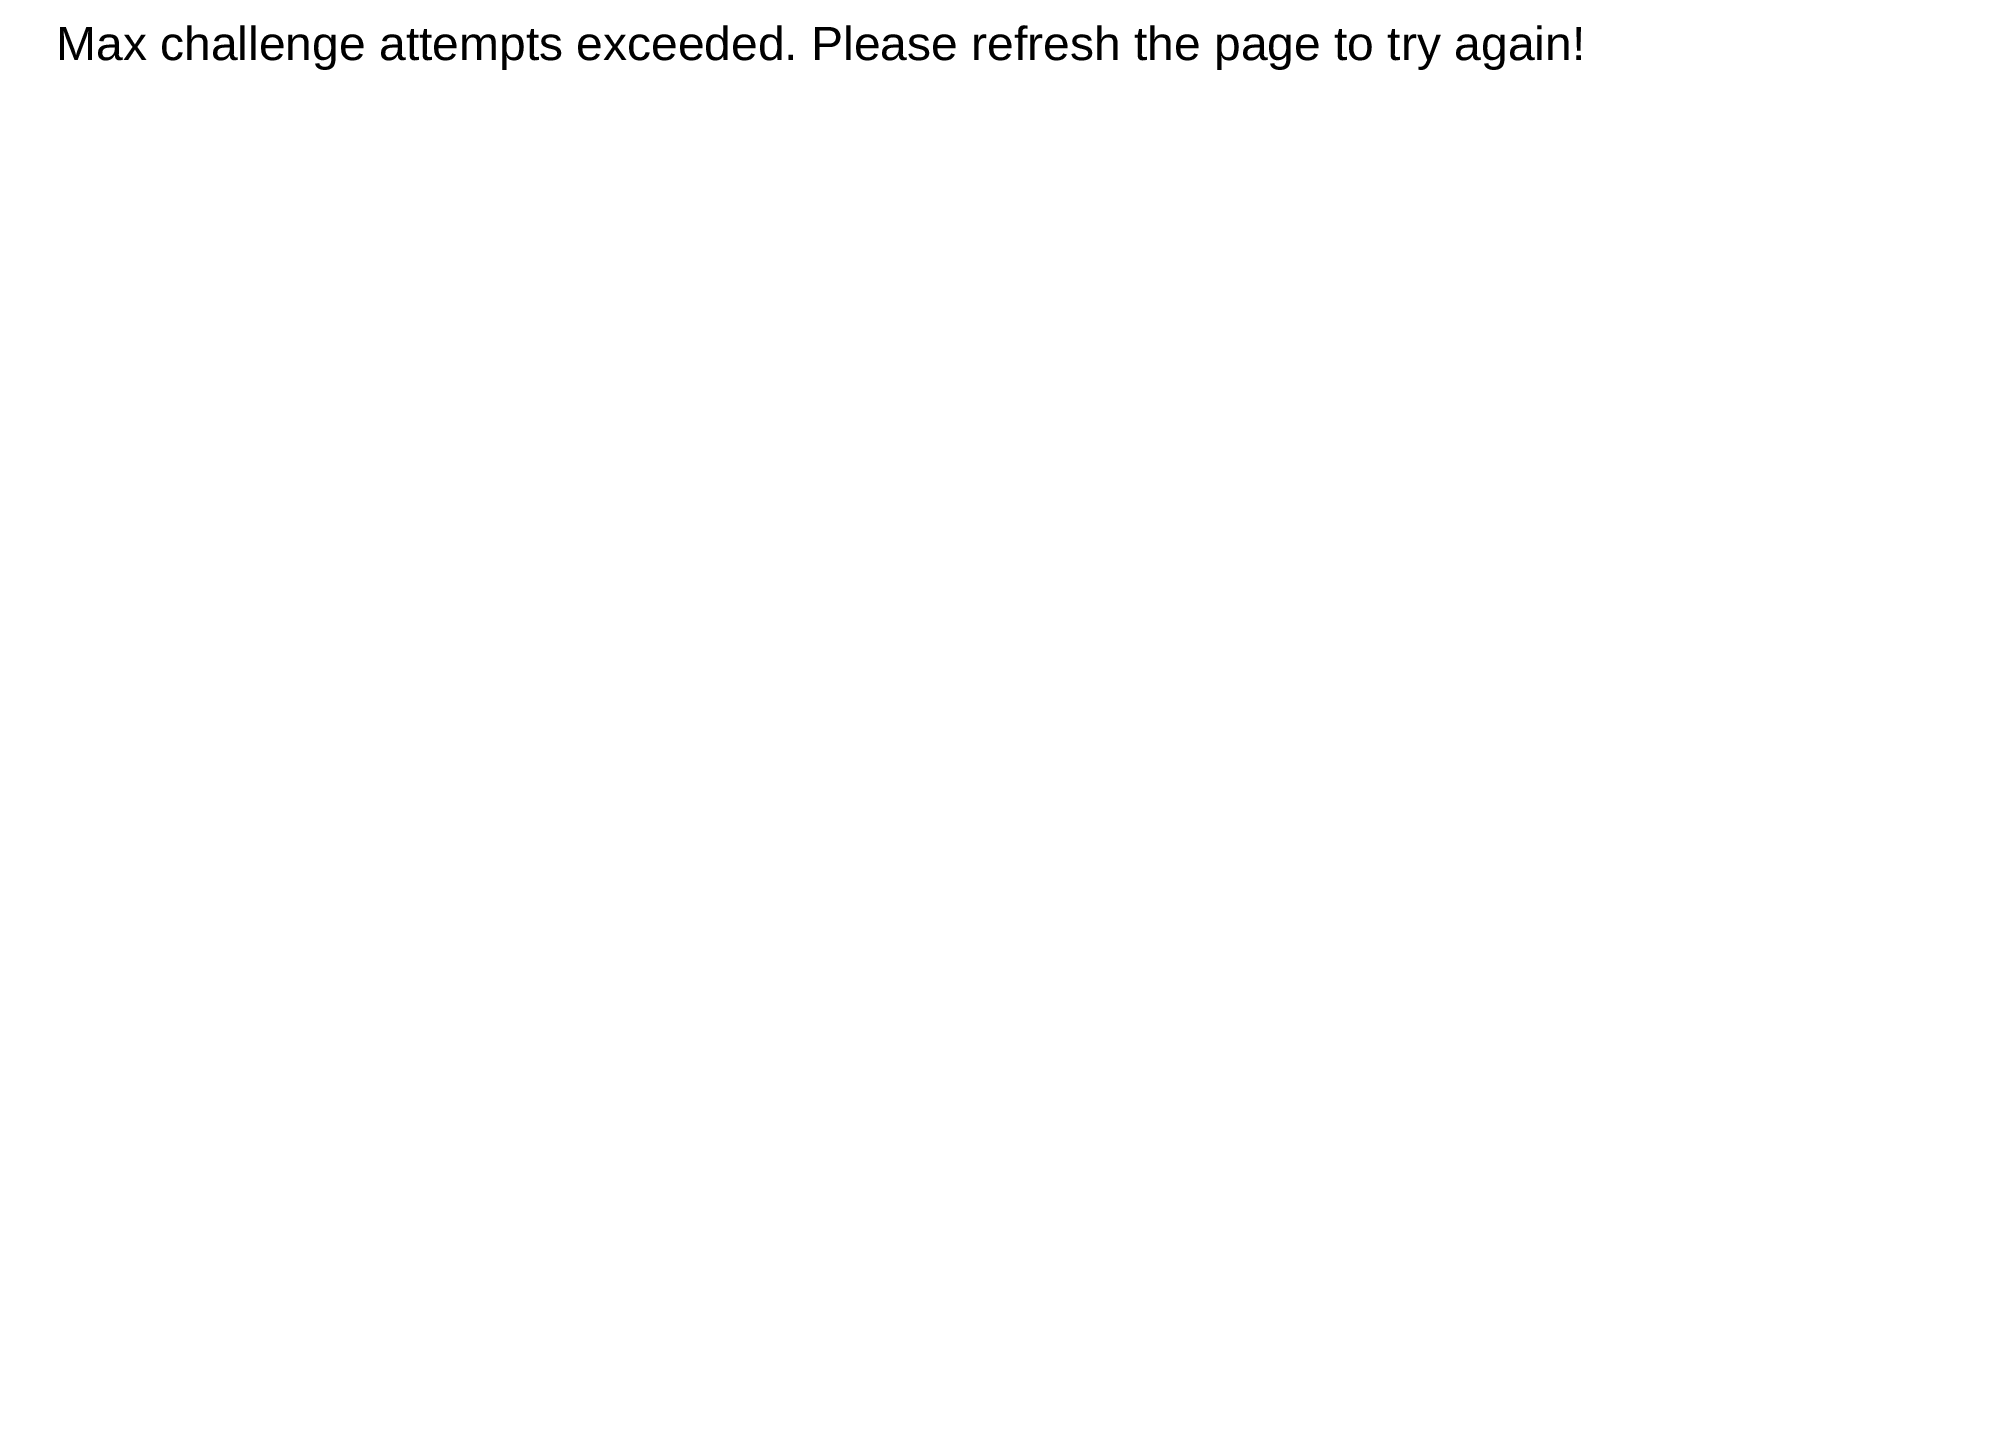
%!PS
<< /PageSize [2009 1438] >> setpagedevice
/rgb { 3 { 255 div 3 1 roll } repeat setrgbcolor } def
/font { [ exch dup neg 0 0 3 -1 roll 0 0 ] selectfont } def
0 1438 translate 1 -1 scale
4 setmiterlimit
255 255 255 rgb
0 0 2009 1438 rectfill
/LiberationSans-Regular 48 font
0 0 0 rgb
56 60 moveto (Max challenge attempts exceeded. Please refresh the page to try again!) show
showpage
